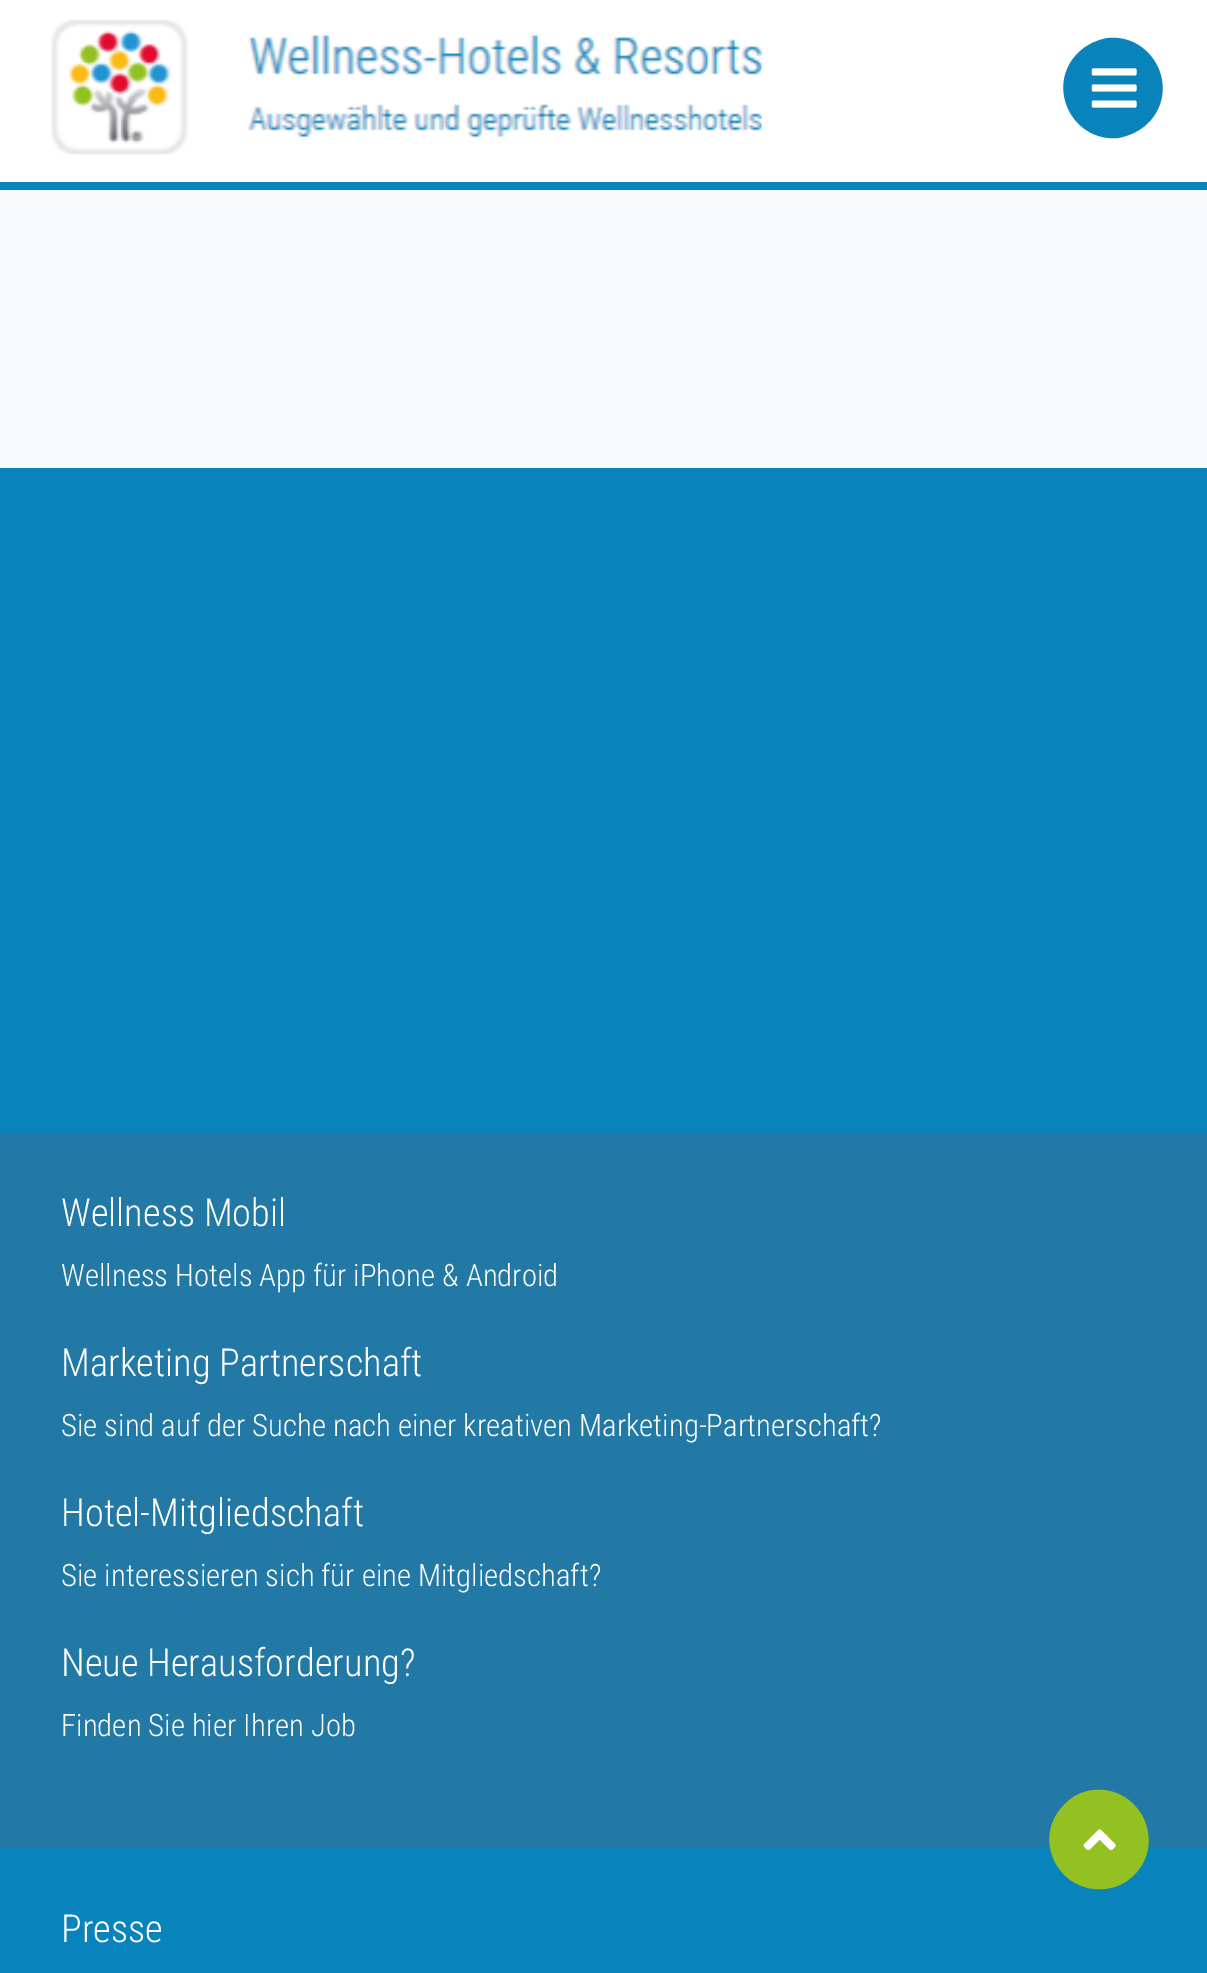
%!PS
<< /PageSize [1207 1973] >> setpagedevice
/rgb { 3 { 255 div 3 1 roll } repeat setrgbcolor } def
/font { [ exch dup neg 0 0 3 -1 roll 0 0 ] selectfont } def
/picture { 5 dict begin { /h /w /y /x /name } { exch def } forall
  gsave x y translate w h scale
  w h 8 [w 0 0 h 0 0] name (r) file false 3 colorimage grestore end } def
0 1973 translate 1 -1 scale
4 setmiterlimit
248 249 250 rgb
0 0 1207 1973 rectfill
255 255 255 rgb
0 0 1207 182 rectfill
8 131 187 rgb
0 182 1207 8 rectfill
(img/1.rgb) 51 19 713 136 picture
1078 53 moveto 1086 45 1096 40 1108 38 curveto 1154 34 1181 90 1148 123 curveto 1140 131 1129 136 1118 138 curveto 1072 142 1045 86 1078 53 curveto closepath fill
(img/2.rgb) 1091 68 46 40 picture
0 468 1207 1505 rectfill
34 121 165 rgb
0 1133 1207 715 rectfill
148 193 34 rgb
1064 1805 moveto 1072 1796 1083 1791 1094 1790 curveto 1140 1786 1167 1842 1134 1875 curveto 1126 1883 1116 1888 1104 1889 curveto 1058 1893 1031 1838 1064 1805 curveto closepath fill
(img/3.rgb) 1083 1829 33 22 picture
/RobotoCondensed-Light 38.5 font
255 255 255 rgb
61 1226 moveto (Wellness Mobil) show
/RobotoCondensed-Light 30.8 font
61 1286 moveto (Wellness Hotels App für iPhone & Android) show
/RobotoCondensed-Light 38.5 font
61 1376 moveto (Marketing Partnerschaft) show
/RobotoCondensed-Light 30.8 font
61 1436 moveto (Sie sind auf der Suche nach einer kreativen Marketing-Partnerschaft?) show
/RobotoCondensed-Light 38.5 font
61 1526 moveto (Hotel-Mitgliedschaft) show
/RobotoCondensed-Light 30.8 font
61 1586 moveto (Sie interessieren sich für eine Mitgliedschaft?) show
/RobotoCondensed-Light 38.5 font
61 1676 moveto (Neue Herausforderung?) show
/RobotoCondensed-Light 30.8 font
61 1736 moveto (Finden Sie hier Ihren Job) show
/RobotoCondensed-Light 38.5 font
61 1942 moveto (Presse) show
showpage
